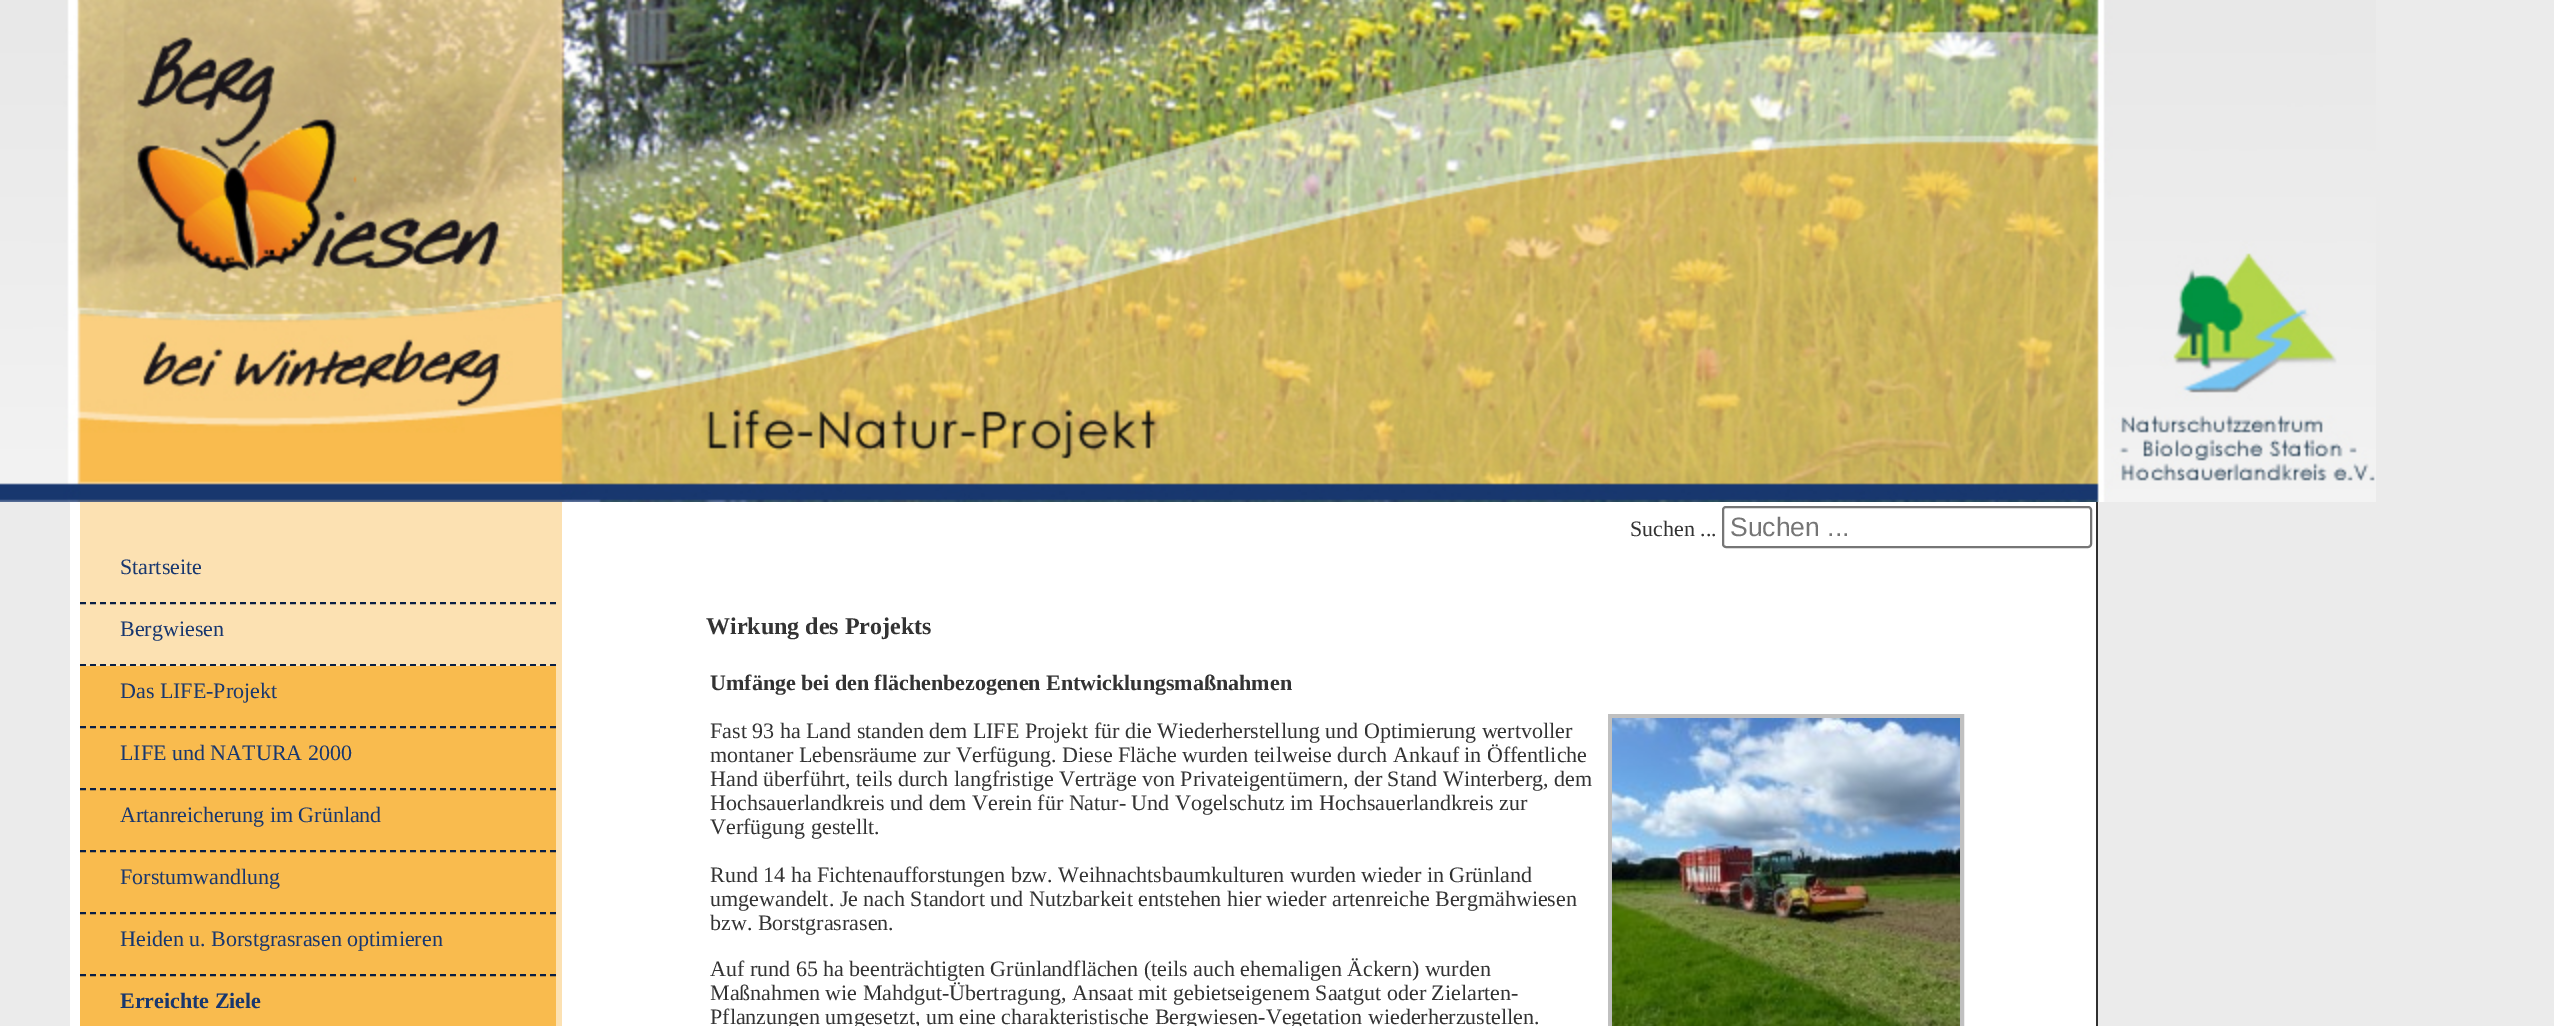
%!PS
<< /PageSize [2554 1026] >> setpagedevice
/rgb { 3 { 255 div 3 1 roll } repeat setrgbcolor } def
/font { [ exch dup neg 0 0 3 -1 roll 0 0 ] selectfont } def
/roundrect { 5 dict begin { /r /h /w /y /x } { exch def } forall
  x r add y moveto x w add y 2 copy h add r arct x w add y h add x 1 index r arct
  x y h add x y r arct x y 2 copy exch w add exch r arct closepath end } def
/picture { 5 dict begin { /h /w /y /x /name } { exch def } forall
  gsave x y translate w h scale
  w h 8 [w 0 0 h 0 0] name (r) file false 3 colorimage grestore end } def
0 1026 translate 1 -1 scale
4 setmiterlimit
235 235 235 rgb
0 0 2554 1026 rectfill
(img/1.rgb) 0 0 2376 502 picture
252 225 178 rgb
80 502 482 524 rectfill
255 255 255 rgb
70 502 10 524 rectfill
9 31 69 rgb
2 setlinewidth
[6 4] 0 setdash
80 603 moveto 556 603 lineto stroke
80 665 moveto 556 665 lineto stroke
249 187 78 rgb
80 666 476 360 rectfill
9 31 69 rgb
80 727 moveto 556 727 lineto stroke
80 789 moveto 556 789 lineto stroke
80 851 moveto 556 851 lineto stroke
80 913 moveto 556 913 lineto stroke
80 975 moveto 556 975 lineto stroke
255 255 255 rgb
562 502 1534 524 rectfill
48 48 48 rgb
2096 502 2 524 rectfill
118 118 118 rgb
[] 0 setdash
1723 507 368 40 3 roundrect stroke
192 192 192 rgb
4 setlinewidth
1610 716 352 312 rectstroke
(img/2.rgb) 1612 718 348 308 picture
/LiberationSerif-Regular 22 font
24 55 111 rgb
[
  [(Startseite) 120 574]
  [(Bergwiesen) 120 636]
  [(Das LIFE-Projekt) 120 698]
  [(LIFE und NATURA 2000) 120 760]
  [(Artanreicherung im Grünland) 120 822]
  [(Forstumwandlung) 120 884]
  [(Heiden u. Borstgrasrasen optimieren) 120 946]
] { aload pop moveto show } forall
/LiberationSerif-Bold 22 font
120 1008 moveto (Erreichte Ziele) show
/LiberationSerif-Regular 22 font
51 51 51 rgb
1630 536 moveto (Suchen ...) show
/LiberationSans-Regular 26.5 font
117 117 117 rgb
1730 536 moveto (Suchen ...) show
/LiberationSerif-Bold 24 font
51 51 51 rgb
706 634 moveto (Wirkung des Projekts) show
/LiberationSerif-Bold 22 font
710 690 moveto (Umfänge bei den flächenbezogenen Entwicklungsmaßnahmen) show
/LiberationSerif-Regular 22 font
[
  [(Fast 93 ha Land standen dem LIFE Projekt für die Wiederherstellung und Optimierung wertvoller) 710 738]
  [(montaner Lebensräume zur Verfügung. Diese Fläche wurden teilweise durch Ankauf in Öffentliche) 710 762]
  [(Hand überführt, teils durch langfristige Verträge von Privateigentümern, der Stand Winterberg, dem) 710 786]
  [(Hochsauerlandkreis und dem Verein für Natur- Und Vogelschutz im Hochsauerlandkreis zur) 710 810]
  [(Verfügung gestellt.) 710 834]
  [(Rund 14 ha Fichtenaufforstungen bzw. Weihnachtsbaumkulturen wurden wieder in Grünland) 710 882]
  [(umgewandelt. Je nach Standort und Nutzbarkeit entstehen hier wieder artenreiche Bergmähwiesen) 710 906]
  [(bzw. Borstgrasrasen.) 710 930]
  [(Auf rund 65 ha beenträchtigten Grünlandflächen \(teils auch ehemaligen Äckern\) wurden) 710 976]
  [(Maßnahmen wie Mahdgut-Übertragung, Ansaat mit gebietseigenem Saatgut oder Zielarten-) 710 1000]
  [(Pflanzungen umgesetzt, um eine charakteristische Bergwiesen-Vegetation wiederherzustellen.) 710 1024]
] { aload pop moveto show } forall
showpage
